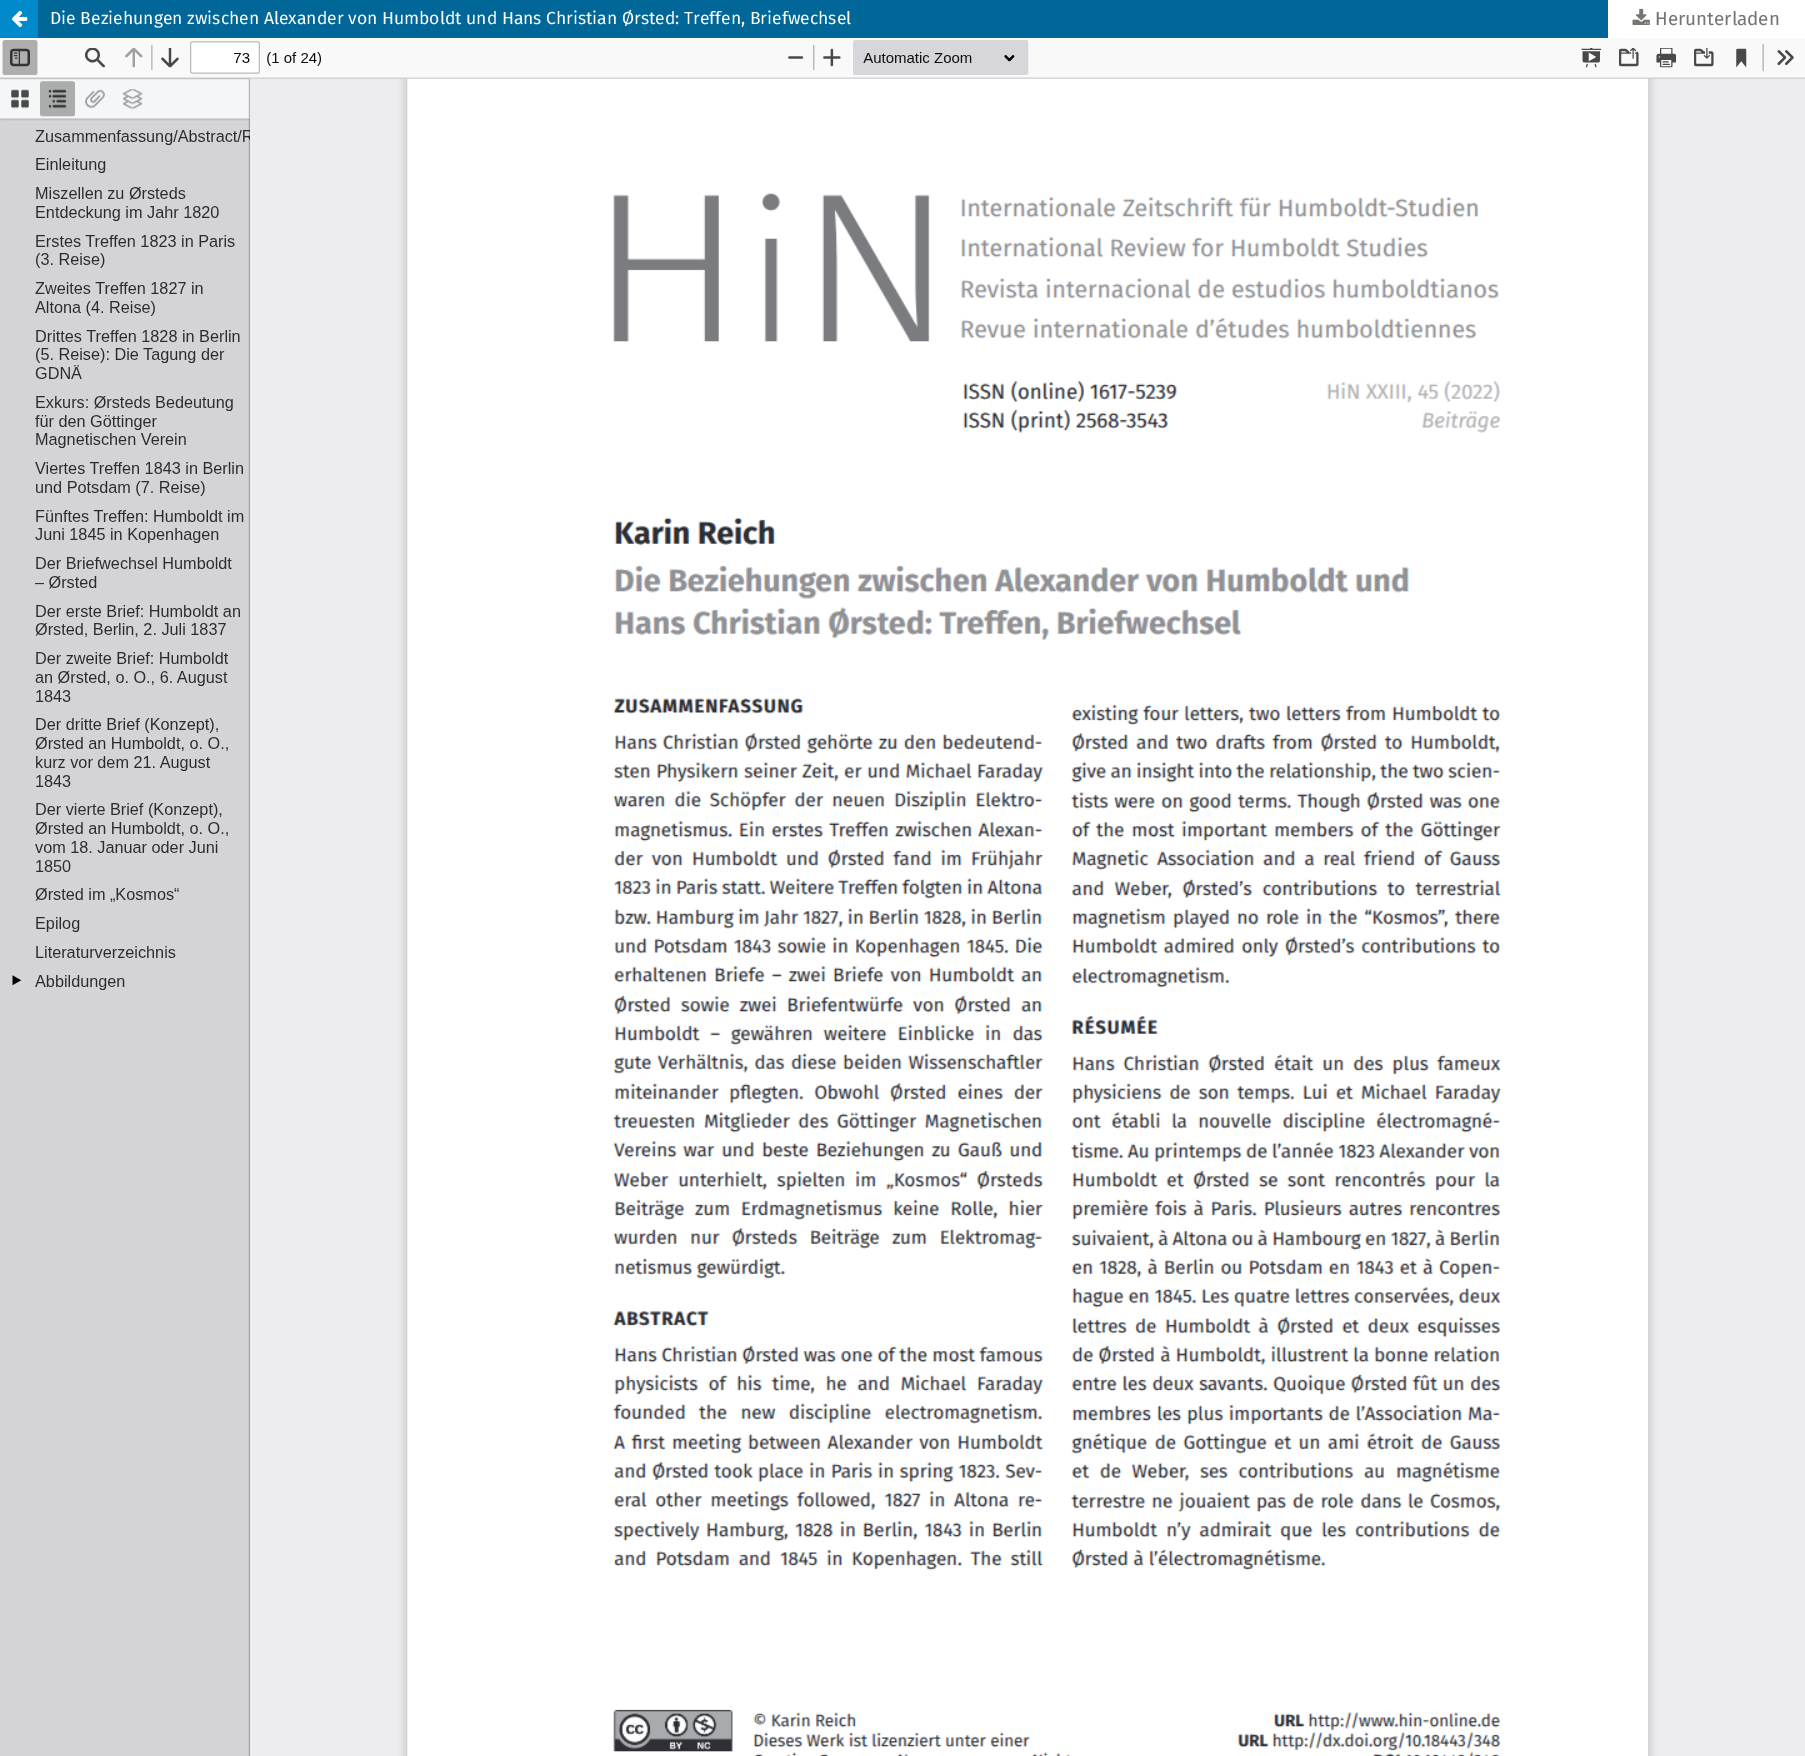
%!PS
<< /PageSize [1805 1756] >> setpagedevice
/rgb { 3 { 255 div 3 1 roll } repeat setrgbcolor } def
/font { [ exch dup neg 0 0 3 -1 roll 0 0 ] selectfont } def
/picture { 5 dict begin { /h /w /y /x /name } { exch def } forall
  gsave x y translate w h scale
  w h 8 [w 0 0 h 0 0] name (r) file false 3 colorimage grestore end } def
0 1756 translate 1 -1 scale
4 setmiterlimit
255 255 255 rgb
0 0 1805 1756 rectfill
0 103 152 rgb
38 0 1570 38 rectfill
0 138 203 rgb
0 0 38 38 rectfill
(img/1.rgb) 12 10 16 18 picture
(img/2.rgb) 1632 8 18 17 picture
(img/3.rgb) 0 38 1805 1718 picture
/FiraSans-Regular 17.5 font
255 255 255 rgb
50 24 moveto (Die Beziehungen zwischen Alexander von Humboldt und Hans Christian Ørsted: Treffen, Briefwechsel) show
/FiraSans-Regular 18.75 font
118 117 114 rgb
1655 25 moveto (Herunterladen) show
showpage
